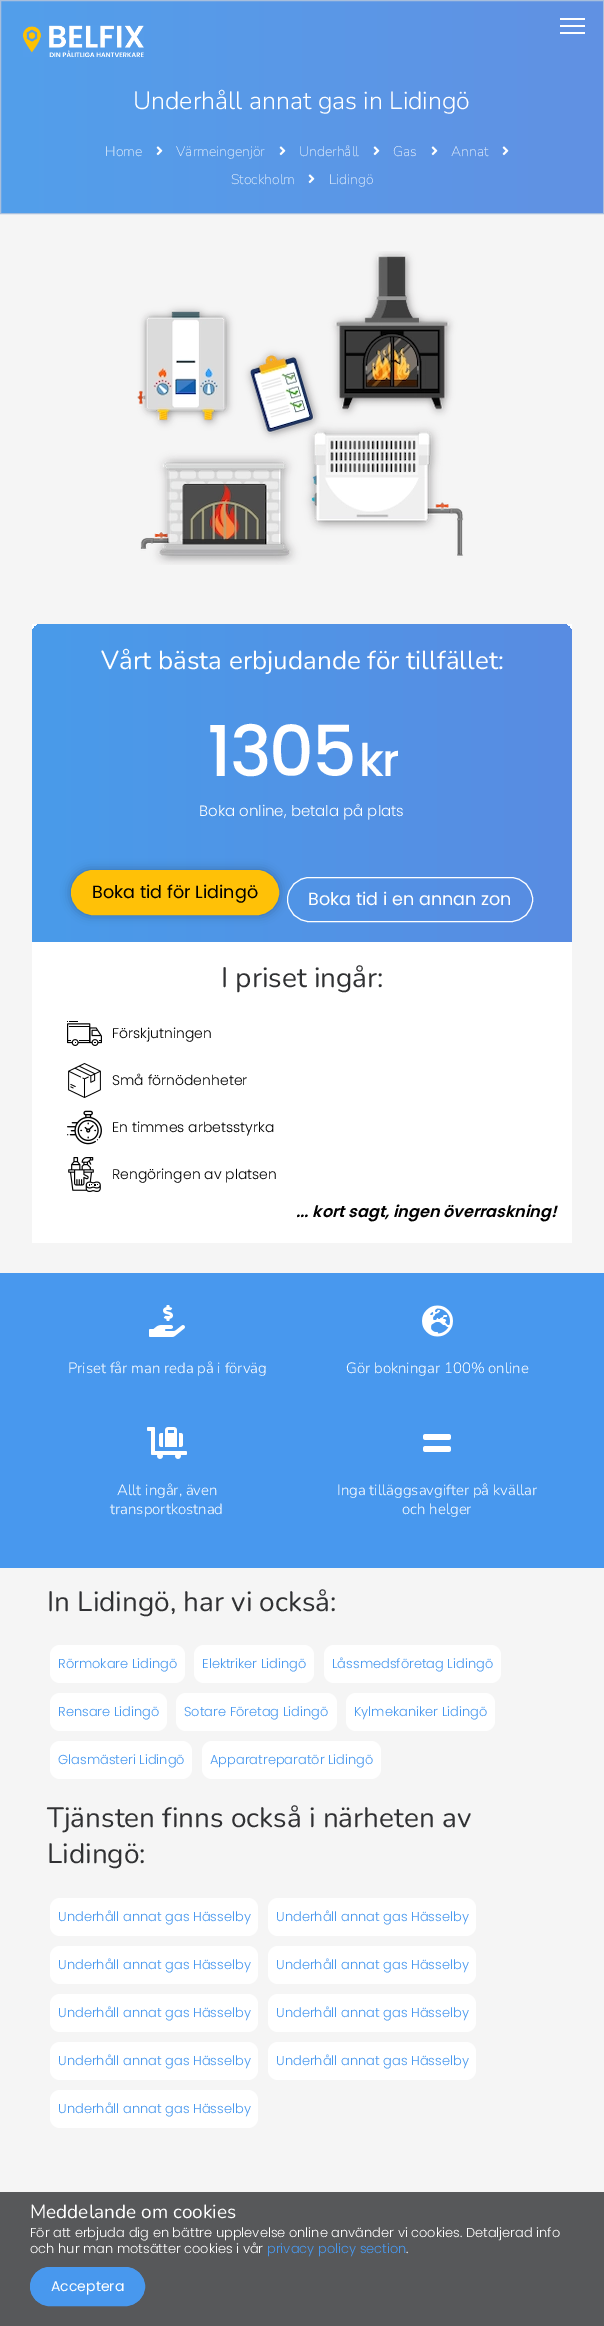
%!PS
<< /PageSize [604 2326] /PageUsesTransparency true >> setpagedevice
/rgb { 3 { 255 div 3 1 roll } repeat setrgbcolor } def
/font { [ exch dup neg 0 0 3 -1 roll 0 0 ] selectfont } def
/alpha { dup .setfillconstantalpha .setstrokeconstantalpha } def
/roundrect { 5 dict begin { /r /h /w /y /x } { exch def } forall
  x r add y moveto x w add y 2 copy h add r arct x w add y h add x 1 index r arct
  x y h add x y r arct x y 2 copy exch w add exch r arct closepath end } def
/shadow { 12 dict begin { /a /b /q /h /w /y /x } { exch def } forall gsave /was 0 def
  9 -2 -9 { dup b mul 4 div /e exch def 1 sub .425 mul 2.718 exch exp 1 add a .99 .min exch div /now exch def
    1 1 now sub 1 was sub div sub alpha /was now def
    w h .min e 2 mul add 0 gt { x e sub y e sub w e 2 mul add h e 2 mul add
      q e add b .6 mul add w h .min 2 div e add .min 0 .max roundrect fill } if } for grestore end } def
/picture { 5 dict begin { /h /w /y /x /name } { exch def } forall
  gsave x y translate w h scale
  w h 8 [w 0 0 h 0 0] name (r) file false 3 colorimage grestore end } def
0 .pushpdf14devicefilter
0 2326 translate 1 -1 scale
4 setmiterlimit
245 245 245 rgb
0 0 604 2326 rectfill
gsave 1 1 moveto 603 1 lineto 603 213 lineto 1 213 lineto closepath clip newpath
<< /ShadingType 2 /ColorSpace /DeviceRGB /Coords [1 107 603 107] /Extend [true true] /Function << /FunctionType 2 /Domain [0 1] /C0 [0.322 0.624 0.922] /C1 [0.38 0.569 0.89] /N 1 >> >> shfill grestore
168 191 221 rgb
0.5 0.5 603 213 rectstroke
(img/1.rgb) 23 25 121 32 picture
[
  [560 25 25 2 255 255 255]
  [560 18 25 2 255 255 255]
  [560 32 25 2 255 255 255]
] { aload pop rgb rectfill } forall
(img/2.rgb) 156 146 7 10 picture
(img/3.rgb) 279 146 7 10 picture
(img/4.rgb) 373 146 7 10 picture
(img/5.rgb) 431 146 7 10 picture
(img/6.rgb) 502 146 7 10 picture
(img/7.rgb) 308 174 7 10 picture
(img/8.rgb) 137 251 327 314 picture
32 624 540 619 rectfill
gsave 42 624 moveto 562 624 lineto 567.5 624 572 628.5 572 634 curveto 572 942 lineto 32 942 lineto 32 634 lineto 32 628.5 36.5 624 42 624 curveto closepath clip newpath
<< /ShadingType 2 /ColorSpace /DeviceRGB /Coords [32 783 572 783] /Extend [true true] /Function << /FunctionType 2 /Domain [0 1] /C0 [0.286 0.608 0.918] /C1 [0.349 0.549 0.886] /N 1 >> >> shfill grestore
0 0 0 rgb
71 870 208 45 22.5 5 0.28 shadow
255 193 7 rgb
71.5 870.5 207 44 22 roundrect gsave fill grestore
stroke
255 255 255 rgb
287.5 877.5 245 44 22 roundrect stroke
(img/9.rgb) 67 1021 35 25 picture
(img/10.rgb) 68 1063 33 35 picture
(img/11.rgb) 67 1110 35 35 picture
(img/12.rgb) 68 1157 33 35 picture
72 152 238 rgb
0 1273 604 295 rectfill
(img/13.rgb) 149 1305 36 32 picture
(img/14.rgb) 422 1305 31 32 picture
(img/15.rgb) 147 1427 40 32 picture
(img/16.rgb) 423 1434 28 18 picture
255 255 255 rgb
50 1645 135 38 10 roundrect fill
194 1645 120 38 10 roundrect fill
324 1645 177 38 10 roundrect fill
50 1693 117 38 10 roundrect fill
176 1693 161 38 10 roundrect fill
346 1693 149 38 10 roundrect fill
50 1741 142 38 10 roundrect fill
202 1741 179 38 10 roundrect fill
50 1898 208 38 10 roundrect fill
268 1898 208 38 10 roundrect fill
50 1946 208 38 10 roundrect fill
268 1946 208 38 10 roundrect fill
50 1994 208 38 10 roundrect fill
268 1994 208 38 10 roundrect fill
50 2042 208 38 10 roundrect fill
268 2042 208 38 10 roundrect fill
50 2090 208 38 10 roundrect fill
87 88 90 rgb
0 2192 604 134 rectfill
72 152 238 rgb
30.5 2267.5 114 38 19 roundrect gsave fill grestore
stroke
/Nunito-Light 25 font
255 255 255 rgb
133 109 moveto (Underhåll annat gas in Lidingö) show
/Nunito-ExtraLight 14 font
238 245 253 rgb
[
  [(Home) 105 156]
  [(Värmeingenjör) 176 156]
  [(Underhåll) 299 156]
  [(Gas) 393 156]
  [(Annat) 451 156]
  [(Stockholm) 231 184]
  [(Lidingö) 329 184]
] { aload pop moveto show } forall
/Nunito-Regular 26 font
255 255 255 rgb
101 669 moveto (Vårt bästa erbjudande för tillfället:) show
/Poppins-Medium 70 font
207 776 moveto -2 0 (1305) ashow
/Poppins-Medium 45 font
359 776 moveto -2 0 (kr) ashow
/Poppins-Light 15 font
199 816 moveto (Boka online, betala på plats) show
/Poppins-Regular 17.6 font
0 0 0 rgb
92 898 moveto (Boka tid för Lidingö) show
255 255 255 rgb
308 905 moveto (Boka tid i en annan zon) show
/Nunito-Regular 28 font
48 49 51 rgb
221 987 moveto (I priset ingår:) show
/Poppins-Light 14 font
0 0 0 rgb
[
  [(Förskjutningen) 112 1038]
  [(Små förnödenheter) 112 1085]
  [(En timmes arbetsstyrka) 112 1132]
  [(Rengöringen av platsen) 112 1179]
] { aload pop moveto show } forall
/Poppins-SemiBoldItalic 16 font
296 1217 moveto (... kort sagt, ingen överraskning!) show
/Nunito-Light 15 font
255 255 255 rgb
[
  [(Priset får man reda på i förväg) 68 1373]
  [(Gör bokningar 100% online) 346 1373]
  [(Allt ingår, även) 117 1495]
  [(transportkostnad) 110 1514]
  [(Inga tilläggsavgifter på kvällar) 337 1495]
  [(och helger) 402 1514]
] { aload pop moveto show } forall
/Nunito-Regular 28 font
48 49 51 rgb
47 1611 moveto (In Lidingö, har vi också:) show
/Poppins-Light 13 font
72 152 238 rgb
[
  [(Rörmokare Lidingö) 58 1668]
  [(Elektriker Lidingö) 202 1668]
  [(Låssmedsföretag Lidingö) 332 1668]
  [(Rensare Lidingö) 58 1716]
  [(Sotare Företag Lidingö) 184 1716]
  [(Kylmekaniker Lidingö) 354 1716]
  [(Glasmästeri Lidingö) 58 1764]
  [(Apparatreparatör Lidingö) 210 1764]
] { aload pop moveto show } forall
/Nunito-Regular 28 font
48 49 51 rgb
47 1827 moveto (Tjänsten finns också i närheten av) show
47 1863 moveto (Lidingö:) show
/Poppins-Light 13 font
72 152 238 rgb
[
  [(Underhåll annat gas Hässelby) 58 1921]
  [(Underhåll annat gas Hässelby) 276 1921]
  [(Underhåll annat gas Hässelby) 58 1969]
  [(Underhåll annat gas Hässelby) 276 1969]
  [(Underhåll annat gas Hässelby) 58 2017]
  [(Underhåll annat gas Hässelby) 276 2017]
  [(Underhåll annat gas Hässelby) 58 2065]
  [(Underhåll annat gas Hässelby) 276 2065]
  [(Underhåll annat gas Hässelby) 58 2113]
] { aload pop moveto show } forall
/Nunito-Regular 19 font
255 255 255 rgb
30 2218 moveto (Meddelande om cookies) show
/Poppins-Light 13 font
30 2237 moveto (För att erbjuda dig en bättre upplevelse online använder vi cookies. Detaljerad info) show
30 2253 moveto (och hur man motsätter cookies i vår) show
72 152 238 rgb
267 2253 moveto (privacy policy section) show
255 255 255 rgb
406 2253 moveto (.) show
/Poppins-Regular 14 font
51 2291 moveto (Acceptera) show
.poppdf14devicefilter showpage
